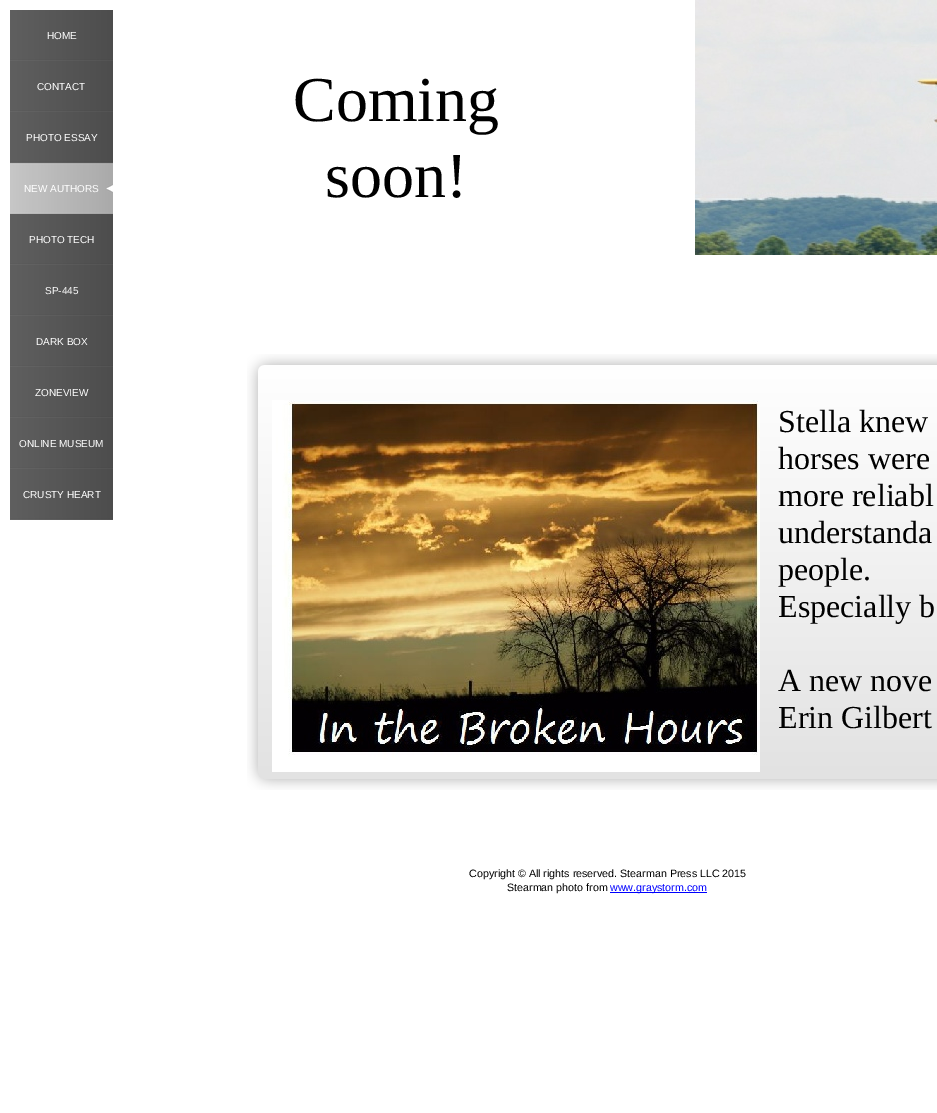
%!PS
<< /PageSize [937 1113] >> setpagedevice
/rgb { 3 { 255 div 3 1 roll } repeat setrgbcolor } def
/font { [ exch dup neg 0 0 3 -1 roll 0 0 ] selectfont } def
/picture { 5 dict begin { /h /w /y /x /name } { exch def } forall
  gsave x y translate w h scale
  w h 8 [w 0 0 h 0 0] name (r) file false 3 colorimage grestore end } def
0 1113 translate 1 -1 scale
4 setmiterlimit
255 255 255 rgb
0 0 937 1113 rectfill
(img/1.rgb) 10 10 103 51 picture
(img/1.rgb) 10 61 103 51 picture
(img/1.rgb) 10 112 103 51 picture
(img/2.rgb) 10 163 103 51 picture
(img/1.rgb) 10 214 103 51 picture
(img/1.rgb) 10 265 103 51 picture
(img/1.rgb) 10 316 103 51 picture
(img/1.rgb) 10 367 103 51 picture
(img/1.rgb) 10 418 103 51 picture
(img/1.rgb) 10 469 103 51 picture
(img/3.rgb) 695 0 242 255 picture
(img/4.rgb) 247 354 690 436 picture
(img/5.rgb) 272 400 488 372 picture
0 0 255 rgb
610 892 97 1 rectfill
/LiberationSans-Regular 10 font
255 255 255 rgb
[
  [(HOME) 47 39]
  [(CONTACT) 37 90]
  [(PHOTO ESSAY) 26 141]
  [(NEW AUTHORS) 24 192]
  [(PHOTO TECH) 29 243]
  [(SP-445) 45 294]
  [(DARK BOX) 36 345]
  [(ZONEVIEW) 35 396]
  [(ONLINE MUSEUM) 19 447]
  [(CRUSTY HEART) 23 498]
] { aload pop moveto show } forall
/LiberationSerif-Regular 64 font
0 0 0 rgb
293 121 moveto (Coming) show
325 197 moveto (soon!) show
/LiberationSerif-Regular 32 font
[
  [(Stella knew) 778 432]
  [(horses were) 778 469]
  [(more reliabl) 778 506]
  [(understanda) 778 543]
  [(people.) 778 580]
  [(Especially b) 778 617]
  [(A new nove) 778 691]
  [(Erin Gilbert) 778 728]
] { aload pop moveto show } forall
/LiberationSans-Regular 10.7 font
469 877 moveto (Copyright © All rights reserved. Stearman Press LLC 2015) show
507 891 moveto (Stearman photo from) show
0 0 255 rgb
610 891 moveto (www.graystorm.com) show
showpage
